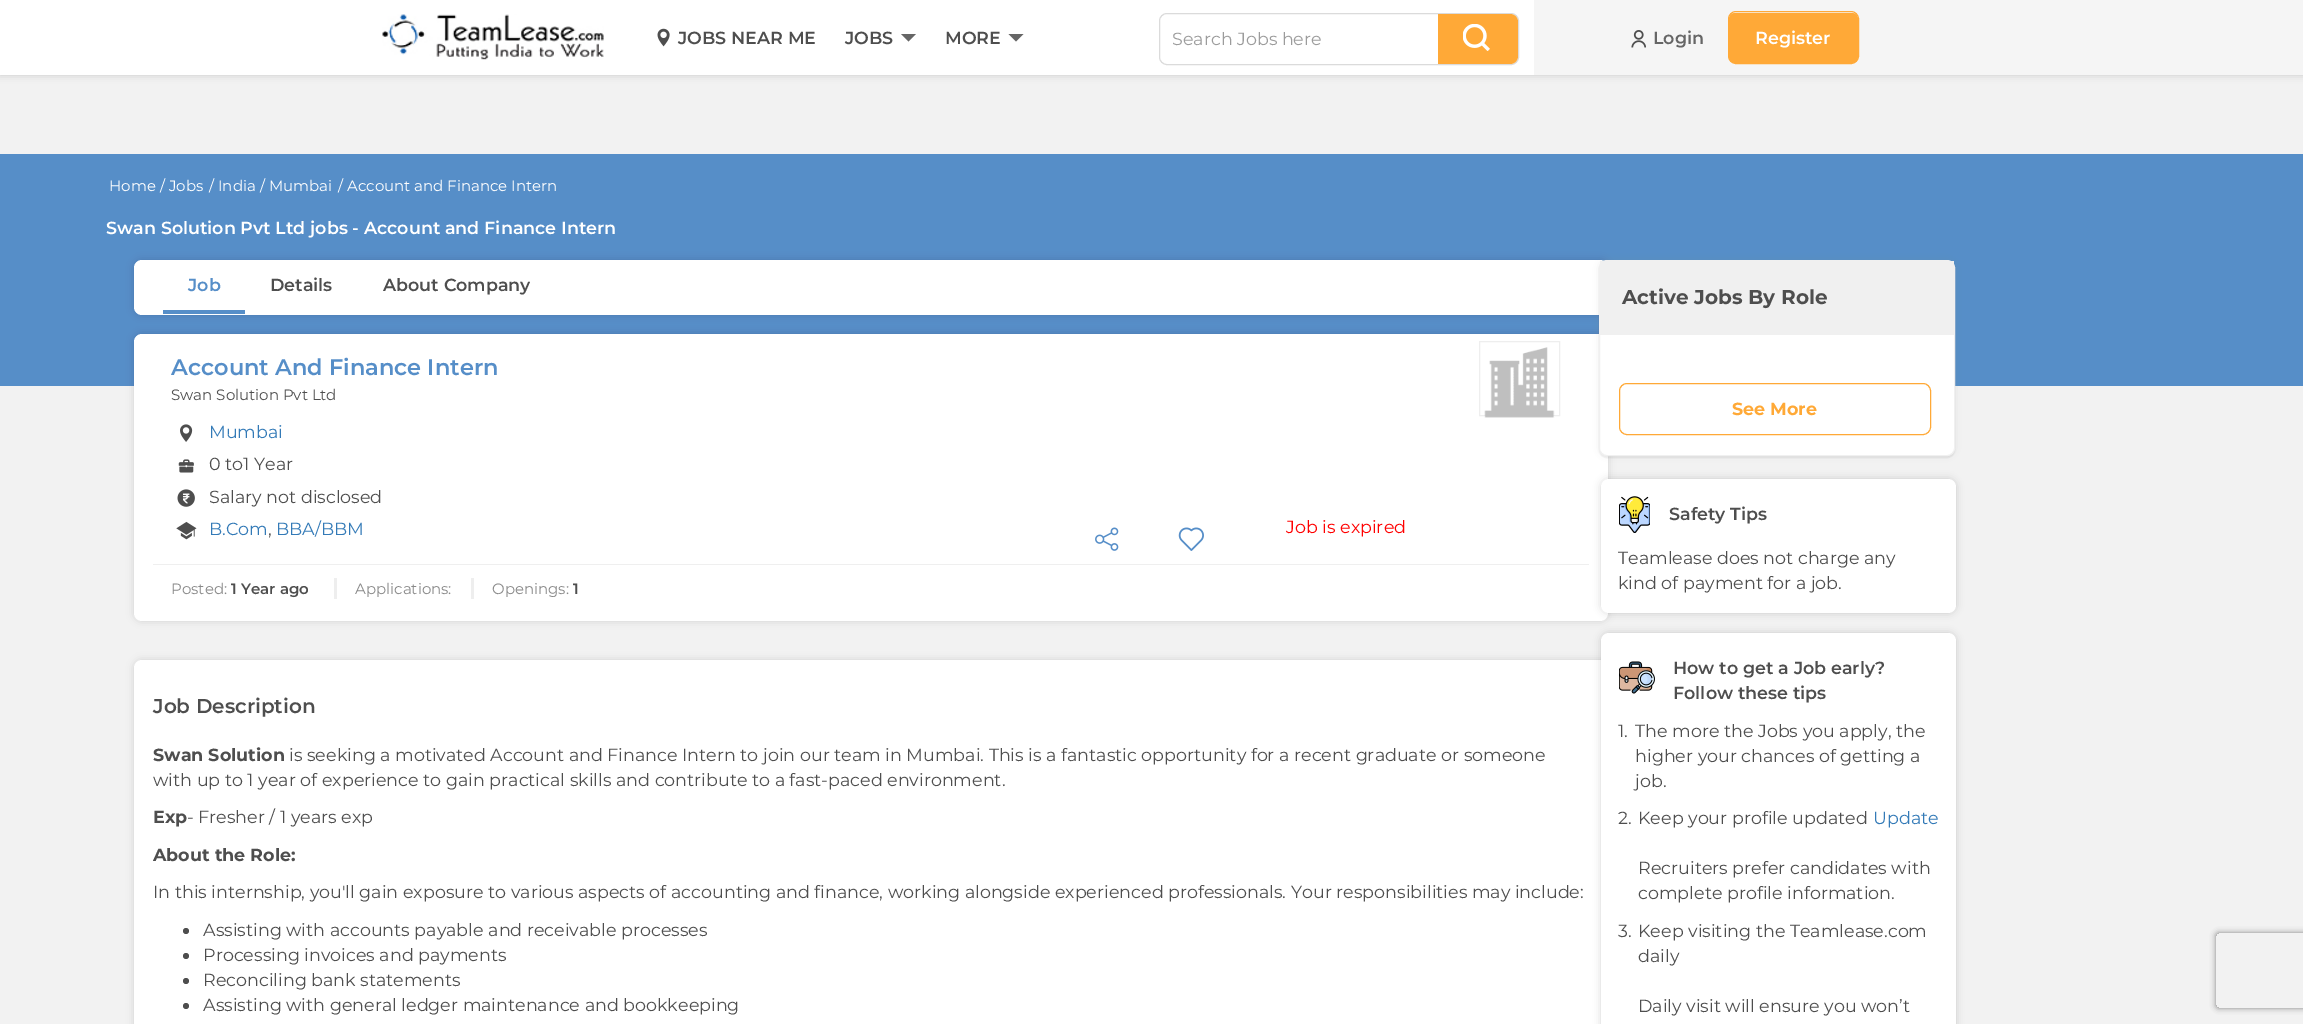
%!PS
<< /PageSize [2303 1024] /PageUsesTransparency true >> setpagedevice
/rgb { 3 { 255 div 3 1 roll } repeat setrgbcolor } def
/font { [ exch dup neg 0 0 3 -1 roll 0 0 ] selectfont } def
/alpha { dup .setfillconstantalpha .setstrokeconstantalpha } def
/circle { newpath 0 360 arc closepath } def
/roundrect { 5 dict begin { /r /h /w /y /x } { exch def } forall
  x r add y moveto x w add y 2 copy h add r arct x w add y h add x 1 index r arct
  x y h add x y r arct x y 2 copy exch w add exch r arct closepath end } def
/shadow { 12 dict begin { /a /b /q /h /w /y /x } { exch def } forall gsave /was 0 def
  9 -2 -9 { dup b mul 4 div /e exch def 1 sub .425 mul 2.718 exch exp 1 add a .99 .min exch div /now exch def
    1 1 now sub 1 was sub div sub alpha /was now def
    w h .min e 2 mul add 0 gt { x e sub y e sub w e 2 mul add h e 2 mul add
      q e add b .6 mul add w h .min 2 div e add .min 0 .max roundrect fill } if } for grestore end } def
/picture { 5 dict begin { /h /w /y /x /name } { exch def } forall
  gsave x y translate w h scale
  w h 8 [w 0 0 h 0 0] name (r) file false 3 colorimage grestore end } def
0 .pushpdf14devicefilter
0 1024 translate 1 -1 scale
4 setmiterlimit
242 242 242 rgb
0 0 2303 1024 rectfill
0 0 0 rgb
0 0 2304 75 0 4 0.16 shadow
255 255 255 rgb
0 0 1534 75 rectfill
245 245 245 rgb
1534 0 769 75 rectfill
(img/1.rgb) 382 14 222 46 picture
(img/2.rgb) 657 28 13 19 picture
102 102 102 rgb
901 34 moveto 908.5 41.5 lineto 916 34 lineto closepath fill
1008.5 34 moveto 1016 41.5 lineto 1023.5 34 lineto closepath fill
219 219 219 rgb
1159.5 13.5 359 51 7.5 roundrect stroke
255 169 55 rgb
1438 14 moveto 1510 14 lineto 1514.5 14 1518 17.5 1518 22 curveto 1518 56 lineto 1518 60.5 1514.5 64 1510 64 curveto 1438 64 lineto closepath fill
(img/3.rgb) 1463 24 27 27 picture
(img/4.rgb) 1631 30 15 18 picture
1729 13 129 50 6 roundrect fill
1728.5 11.5 130 52 7.5 roundrect stroke
86 142 200 rgb
0 154 2303 232 rectfill
0 0 0 rgb
134 260 1474 55 8 4 0.14 shadow
255 255 255 rgb
134 260 1474 55 8 roundrect fill
86 142 200 rgb
163 310 82 4 rectfill
0 0 0 rgb
134 334 1474 287 8 4 0.14 shadow
255 255 255 rgb
134 334 1474 287 8 roundrect fill
238 238 238 rgb
1479.5 341.5 80 74 rectstroke
(img/5.rgb) 1484 347 71 71 picture
(img/6.rgb) 180 424 13 18 picture
(img/7.rgb) 178 459 16 14 picture
(img/8.rgb) 177 489 18 18 picture
(img/9.rgb) 176 521 21 19 picture
(img/10.rgb) 1095 527 24 24 picture
(img/11.rgb) 1178 527 26 24 picture
[
  [153 564 1436 1 239 239 239]
  [334 578 3 21 238 238 238]
  [471 578 3 21 238 238 238]
] { aload pop rgb rectfill } forall
0 0 0 rgb
134 660 1474 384 8 4 0.14 shadow
255 255 255 rgb
134 660 1474 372 8 roundrect fill
78 78 78 rgb
186 931 3 circle fill
186 956 3 circle fill
186 981 3 circle fill
186 1006 3 circle fill
128 128 128 rgb
1599 260 356 196 8 4 0.16 shadow
0 0 0 rgb
1599 261 356 197 8 0.5 0.05 shadow
255 255 255 rgb
1599.5 260.5 355 195 7.5 roundrect gsave fill grestore
240 240 240 rgb
stroke
1600 261 354 74 rectfill
255 169 55 rgb
1619.5 383.5 311 51 7.5 roundrect stroke
0 0 0 rgb
1601 479 355 134 8 4 0.16 shadow
255 255 255 rgb
1601 479 355 134 8 roundrect fill
(img/12.rgb) 1619 496 31 37 picture
0 0 0 rgb
1601 633 355 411 8 4 0.16 shadow
255 255 255 rgb
1601 633 355 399 8 roundrect fill
(img/13.rgb) 1619 661 36 33 picture
gsave
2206 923 moveto 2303 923 lineto 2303 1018 lineto 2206 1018 lineto closepath 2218.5 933 moveto 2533.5 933 lineto 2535 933 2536 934 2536 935.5 curveto 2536 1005.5 lineto 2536 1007 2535 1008 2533.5 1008 curveto 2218.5 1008 lineto 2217 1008 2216 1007 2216 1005.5 curveto 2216 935.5 lineto 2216 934 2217 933 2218.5 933 curveto closepath eoclip newpath
128 128 128 rgb
2216 933 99 75 2.5 3 1 shadow
grestore
/Montserrat-SemiBold 17.5 font
78 78 78 rgb
[
  [(JOBS NEAR ME) 678 44]
  [(JOBS) 845 44]
  [(MORE) 945 44]
] { aload pop moveto show } forall
/Montserrat-Regular 17.5 font
156 156 156 rgb
1172 45 moveto (Search Jobs here) show
/Montserrat-SemiBold 17.5 font
102 102 102 rgb
1653 44 moveto (Login) show
255 255 255 rgb
1755 44 moveto (Register) show
/Montserrat-Regular 15 font
[
  [(Home) 109 191]
  [(/ Jobs) 160 191]
  [(/ India) 209 191]
  [(/ Mumbai) 260 191]
  [(/ Account and Finance Intern) 338 191]
] { aload pop moveto show } forall
/Montserrat-SemiBold 17.5 font
106 234 moveto (Swan Solution Pvt Ltd jobs - Account and Finance Intern) show
86 142 200 rgb
188 291 moveto (Job) show
78 78 78 rgb
270 291 moveto (Details) show
383 291 moveto (About Company) show
/Montserrat-SemiBold 22.5 font
86 142 200 rgb
171 375 moveto (Account And Finance Intern) show
/Montserrat-Regular 15 font
78 78 78 rgb
171 400 moveto (Swan Solution Pvt Ltd) show
/Montserrat-Regular 17.5 font
51 122 183 rgb
209 438 moveto (Mumbai) show
78 78 78 rgb
209 470 moveto (0 to1 Year) show
209 503 moveto (Salary not disclosed) show
51 122 183 rgb
209 535 moveto (B.Com) show
78 78 78 rgb
268 535 moveto (,) show
51 122 183 rgb
276 535 moveto (BBA/BBM) show
255 0 0 rgb
1286 533 moveto (Job is expired) show
/Montserrat-Regular 15 font
137 137 137 rgb
171 594 moveto (Posted:) show
/Montserrat-SemiBold 15 font
78 78 78 rgb
231 594 moveto (1 Year ago) show
/Montserrat-Regular 15 font
137 137 137 rgb
355 594 moveto (Applications:) show
492 594 moveto (Openings:) show
/Montserrat-SemiBold 15 font
78 78 78 rgb
573 594 moveto (1) show
/Montserrat-SemiBold 20 font
153 713 moveto (Job Description) show
/Montserrat-Bold 17.5 font
153 761 moveto (Swan Solution) show
/Montserrat-Regular 17.5 font
289 761 moveto (is seeking a motivated Account and Finance Intern to join our team in Mumbai. This is a fantastic opportunity for a recent graduate or someone) show
153 786 moveto (with up to 1 year of experience to gain practical skills and contribute to a fast-paced environment.) show
/Montserrat-Bold 17.5 font
153 823 moveto (Exp) show
/Montserrat-Regular 17.5 font
187 823 moveto (- Fresher / 1 years exp) show
/Montserrat-Bold 17.5 font
153 861 moveto (About the Role:) show
/Montserrat-Regular 17.5 font
[
  [(In this internship, you'll gain exposure to various aspects of accounting and finance, working alongside experienced professionals. Your responsibilities may include:) 153 898]
  [(Assisting with accounts payable and receivable processes) 203 936]
  [(Processing invoices and payments) 203 961]
  [(Reconciling bank statements) 203 986]
  [(Assisting with general ledger maintenance and bookkeeping) 203 1011]
] { aload pop moveto show } forall
/Montserrat-Bold 20 font
1622 304 moveto (Active Jobs By Role) show
/Montserrat-Bold 17.5 font
255 169 55 rgb
1732 415 moveto (See More) show
/Montserrat-SemiBold 17.5 font
78 78 78 rgb
1669 520 moveto (Safety Tips) show
/Montserrat-Regular 17.5 font
1618 564 moveto (Teamlease does not charge any) show
1618 589 moveto (kind of payment for a job.) show
/Montserrat-SemiBold 17.5 font
1673 674 moveto (How to get a Job early?) show
1673 699 moveto (Follow these tips) show
/Montserrat-Regular 17.5 font
[
  [(1.) 1618 737]
  [(The more the Jobs you apply, the) 1635 737]
  [(higher your chances of getting a) 1635 762]
  [(job.) 1635 787]
  [(2.) 1618 824]
  [(Keep your profile updated) 1638 824]
] { aload pop moveto show } forall
51 122 183 rgb
1873 824 moveto (Update) show
78 78 78 rgb
[
  [(Recruiters prefer candidates with) 1638 874]
  [(complete profile information.) 1638 899]
  [(3.) 1618 937]
  [(Keep visiting the Teamlease.com) 1638 937]
  [(daily) 1638 962]
  [(Daily visit will ensure you won’t) 1638 1012]
] { aload pop moveto show } forall
.poppdf14devicefilter showpage
